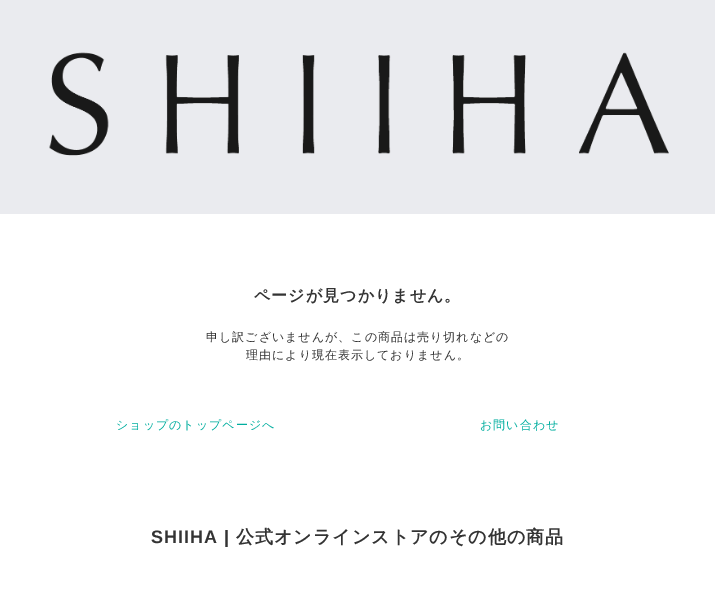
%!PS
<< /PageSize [715 593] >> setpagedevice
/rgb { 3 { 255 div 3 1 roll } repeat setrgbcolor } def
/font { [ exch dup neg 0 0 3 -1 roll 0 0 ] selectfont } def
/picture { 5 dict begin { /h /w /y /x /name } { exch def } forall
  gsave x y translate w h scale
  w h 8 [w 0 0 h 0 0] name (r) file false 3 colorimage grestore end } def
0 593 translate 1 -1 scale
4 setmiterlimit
234 235 239 rgb
0 0 715 593 rectfill
(img/1.rgb) 49 52 620 104 picture
255 255 255 rgb
0 214 715 379 rectfill
/WenQuanYiZenHei-Bold 16 font
51 51 51 rgb
254 301 moveto 1 0 (ページが見つかりません。) ashow
/WenQuanYiZenHei-Medium 12 font
206 341 moveto 1 0 (申し訳ございませんが、この商品は売り切れなどの) ashow
246 359 moveto 1 0 (理由により現在表示しておりません。) ashow
0 174 159 rgb
116 429 moveto 1 0 (ショップのトップページへ) ashow
480 429 moveto 1 0 (お問い合わせ) ashow
/LiberationSans-Bold 18 font
51 51 51 rgb
151 543 moveto 1 0 (SHIIHA |) ashow
/WenQuanYiZenHei-Bold 18 font
236 543 moveto 1 0 (公式オンラインストアのその他の商品) ashow
showpage
